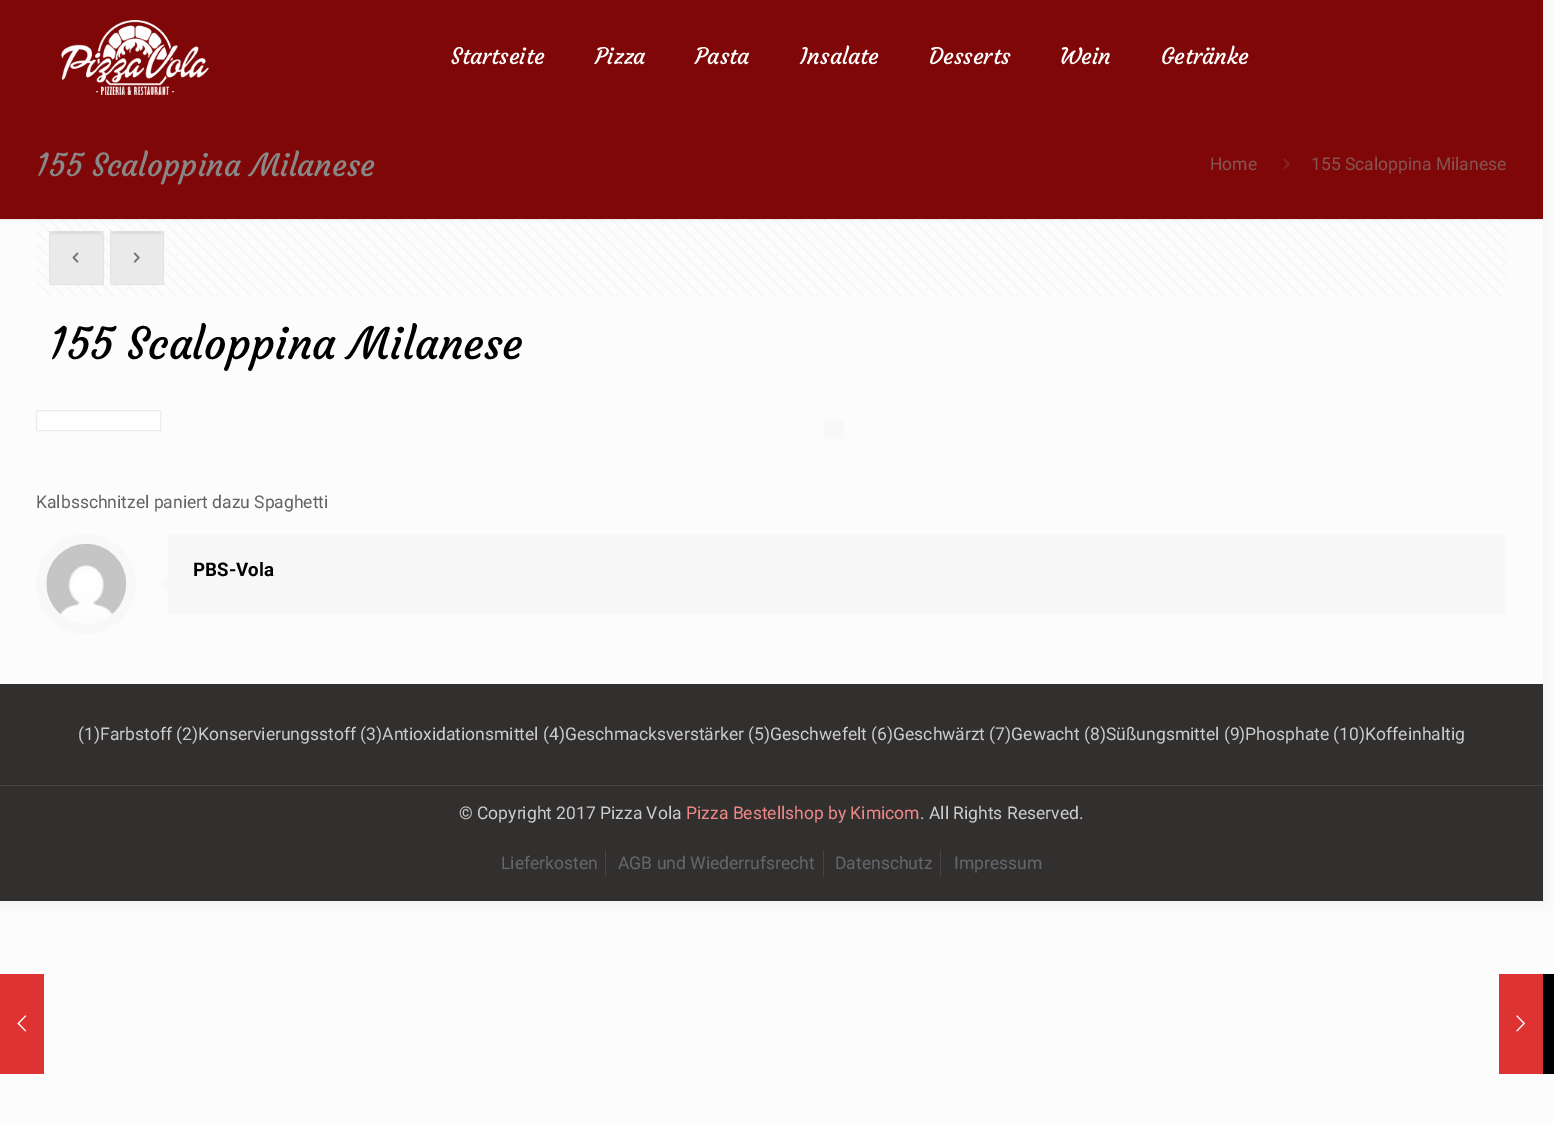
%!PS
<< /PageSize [1554 1123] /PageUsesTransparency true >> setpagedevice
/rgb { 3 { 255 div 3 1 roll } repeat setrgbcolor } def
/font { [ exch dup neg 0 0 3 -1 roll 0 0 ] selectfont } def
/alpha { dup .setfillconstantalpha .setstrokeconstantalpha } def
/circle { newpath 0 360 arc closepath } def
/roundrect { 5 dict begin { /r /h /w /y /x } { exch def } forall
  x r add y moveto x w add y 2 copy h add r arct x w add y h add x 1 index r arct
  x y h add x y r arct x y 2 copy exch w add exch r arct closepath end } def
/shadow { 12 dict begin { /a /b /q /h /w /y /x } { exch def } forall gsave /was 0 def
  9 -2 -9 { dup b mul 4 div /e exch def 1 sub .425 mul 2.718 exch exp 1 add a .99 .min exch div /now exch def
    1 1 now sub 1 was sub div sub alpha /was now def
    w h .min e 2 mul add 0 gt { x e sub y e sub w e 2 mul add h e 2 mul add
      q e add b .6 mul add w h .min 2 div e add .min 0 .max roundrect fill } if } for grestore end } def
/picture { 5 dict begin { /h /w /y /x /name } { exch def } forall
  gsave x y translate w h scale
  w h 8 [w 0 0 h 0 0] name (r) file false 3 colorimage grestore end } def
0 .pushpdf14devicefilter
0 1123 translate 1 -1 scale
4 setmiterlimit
252 252 252 rgb
0 0 1554 1123 rectfill
0 0 0 rgb
0 0 1543 901 0 9.5 0.06 shadow
252 252 252 rgb
0 219 1543 465 rectfill
128 7 7 rgb
0 0 1543 219 rectfill
(img/1.rgb) 61 20 148 75 picture
(img/2.rgb) 1283 158 7 11 picture
(img/4.rgb) 36 219 1470 78 picture
(img/3.rgb) 0 219 1542 2 picture
247 247 247 rgb
49 231 55 54 6 roundrect fill
(img/5.rgb) 50 231 52 4 picture
0.03 alpha
0 0 0 rgb
49.5 231.5 54 53 rectstroke
0.05 alpha
49 231 55 54 rectfill
1 alpha
(img/6.rgb) 72 252 7 11 picture
247 247 247 rgb
110 231 54 54 6 roundrect fill
(img/7.rgb) 111 231 51 4 picture
0.03 alpha
0 0 0 rgb
110.5 231.5 53 53 rectstroke
0.05 alpha
110 231 54 54 rectfill
1 alpha
(img/8.rgb) 133 252 7 11 picture
255 255 255 rgb
36.5 410.5 moveto 160.5 410.5 lineto 160.5 430.5 lineto 36.5 430.5 lineto closepath gsave fill grestore
235 235 235 rgb
stroke
248 248 248 rgb
824 419 20 20 rectfill
10 setlinewidth
86 584 45 circle stroke
(img/9.rgb) 46 544 80 71 picture
247 247 247 rgb
168 534 1338 80 rectfill
167.5 577.5 moveto 167.5 592.5 lineto 160 585 lineto closepath fill
[
  [0 684 1543 217 50 47 47]
  [0 785 1543 1 71 68 68]
  [605 850 1 26 71 68 68]
  [823 850 1 26 71 68 68]
  [940 850 1 26 71 68 68]
  [0 974 44 100 221 51 51]
] { aload pop rgb rectfill } forall
(img/10.rgb) 17 1015 10 17 picture
1499 974 44 100 rectfill
(img/11.rgb) 1516 1015 9 17 picture
0 0 0 rgb
1543 974 11 100 rectfill
/Courgette-Regular 22.5 font
255 255 255 rgb
[
  [(Startseite) 451 64]
  [(Pizza) 595 64]
  [(Pasta) 695 64]
  [(Insalate) 800 64]
  [(Desserts) 929 64]
  [(Wein) 1060 64]
  [(Getränke) 1161 64]
] { aload pop moveto show } forall
/Courgette-Regular 31.25 font
136 136 136 rgb
36 176 moveto (155 Scaloppina Milanese) show
/Roboto-Regular 17.5 font
133 84 84 rgb
1210 170 moveto (Home) show
1311 170 moveto (155 Scaloppina Milanese) show
/Courgette-Regular 43.75 font
0 0 0 rgb
49 359 moveto (155 Scaloppina Milanese) show
/Roboto-Regular 17.5 font
98 98 98 rgb
36 508 moveto (Kalbsschnitzel paniert dazu Spaghetti) show
/Roboto-Bold 18.75 font
0 0 0 rgb
193 576 moveto (PBS-Vola) show
/Roboto-Regular 17.5 font
204 204 204 rgb
78 740 moveto (\(1\)Farbstoff \(2\)Konservierungsstoff \(3\)Antioxidationsmittel \(4\)Geschmacksverstärker \(5\)Geschwefelt \(6\)Geschwärzt \(7\)Gewacht \(8\)Süßungsmittel \(9\)Phosphate \(10\)Koffeinhaltig) show
459 819 moveto (© Copyright 2017 Pizza Vola) show
241 136 136 rgb
686 819 moveto (Pizza Bestellshop by Kimicom) show
204 204 204 rgb
920 819 moveto (. All Rights Reserved.) show
101 102 108 rgb
[
  [(Lieferkosten) 501 869]
  [(AGB und Wiederrufsrecht) 618 869]
  [(Datenschutz) 835 869]
  [(Impressum) 954 869]
] { aload pop moveto show } forall
.poppdf14devicefilter showpage
